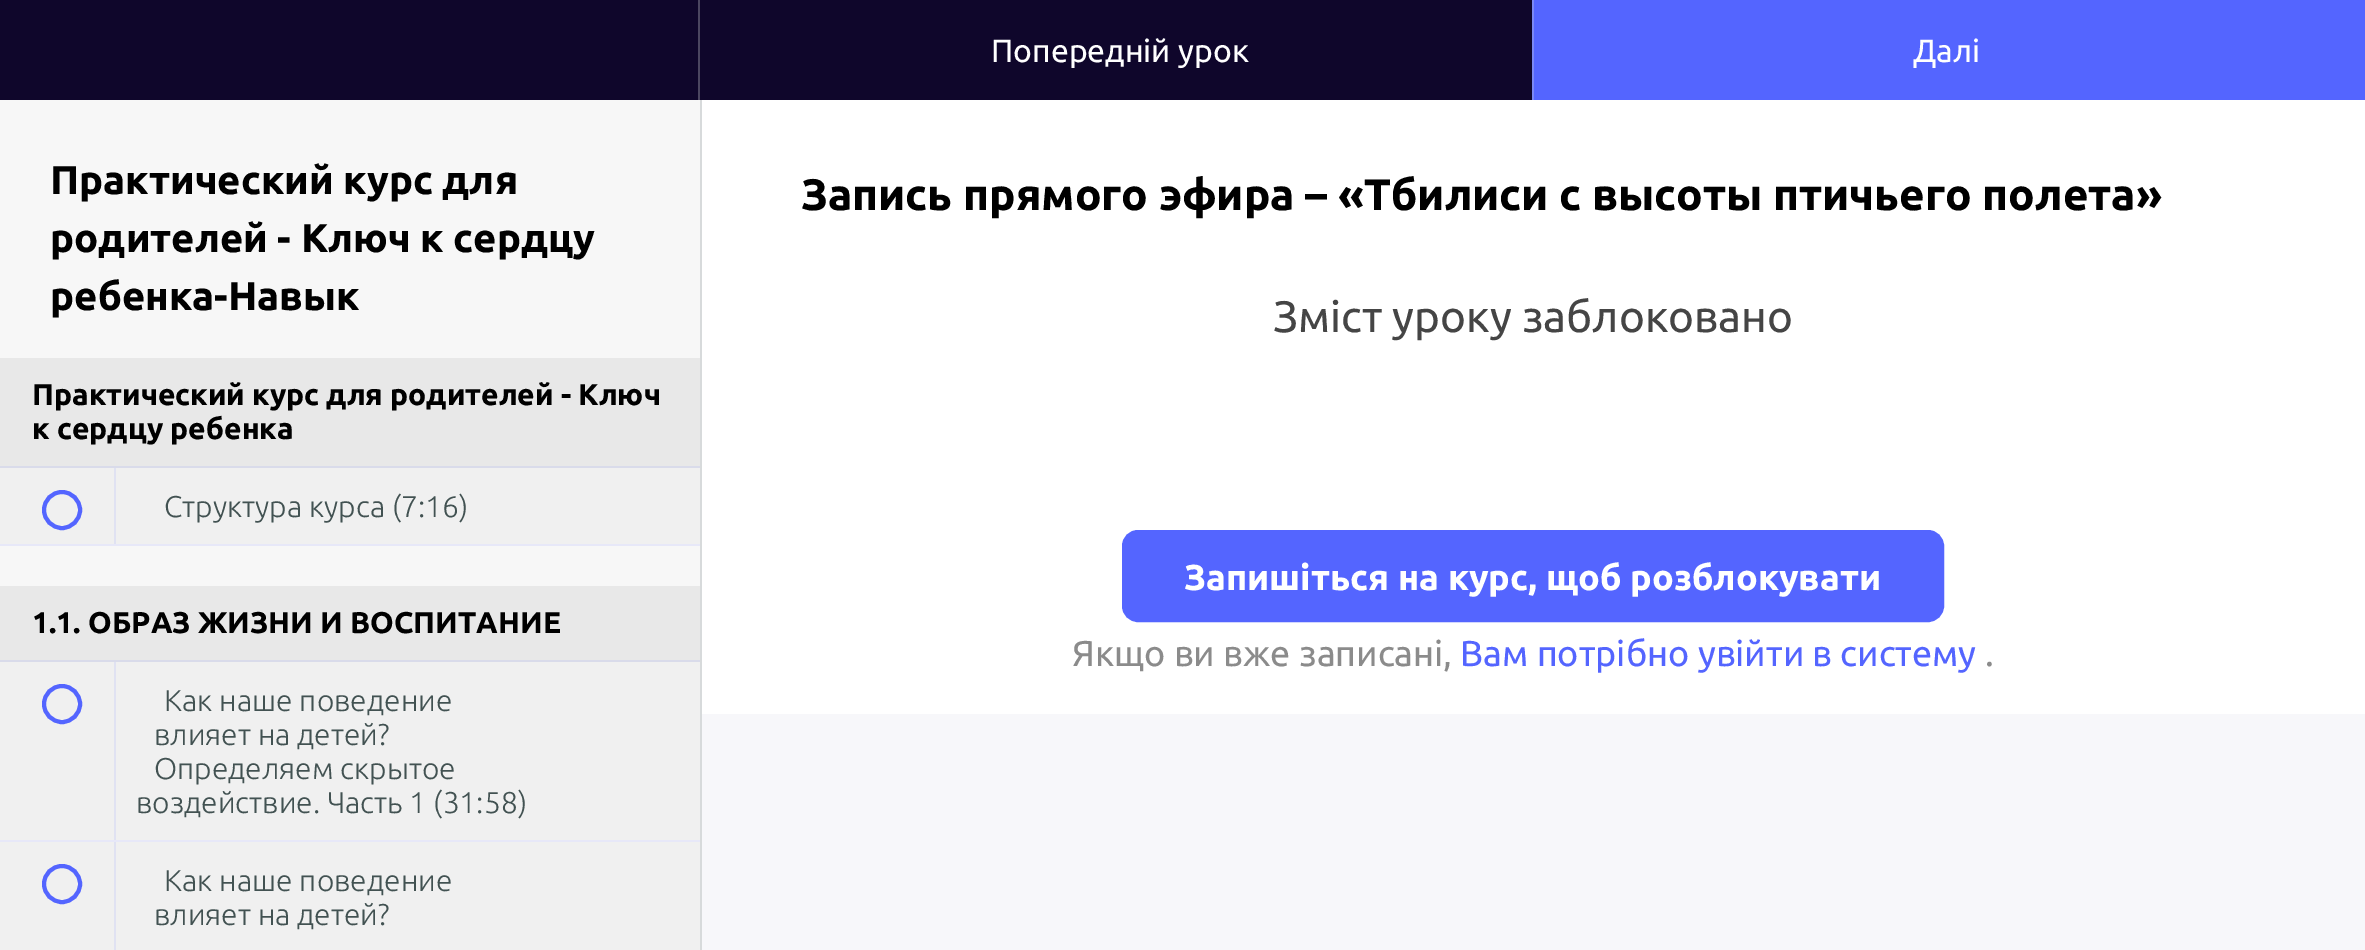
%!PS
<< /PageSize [2365 950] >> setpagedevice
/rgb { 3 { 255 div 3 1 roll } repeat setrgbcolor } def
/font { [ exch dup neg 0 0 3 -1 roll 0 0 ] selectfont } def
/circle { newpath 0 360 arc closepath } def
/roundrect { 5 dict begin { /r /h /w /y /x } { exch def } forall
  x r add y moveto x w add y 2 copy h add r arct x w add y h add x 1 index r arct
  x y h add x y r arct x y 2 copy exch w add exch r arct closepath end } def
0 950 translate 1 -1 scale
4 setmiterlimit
247 247 250 rgb
0 0 2365 950 rectfill
[
  [0 0 1532 100 15 6 43]
  [698 0 2 100 75 70 96]
  [1534 0 831 100 84 101 255]
  [1532 0 2 100 123 136 244]
  [0 100 700 486 247 247 247]
  [700 100 2 850 215 218 219]
  [0 358 700 108 232 232 232]
  [0 466 700 2 217 219 234]
  [0 544 700 2 231 232 248]
  [0 468 700 76 240 240 240]
] { aload pop rgb rectfill } forall
84 101 255 rgb
4 setlinewidth
62 510 18 circle stroke
[
  [114 468 2 76 224 226 242]
  [0 586 700 74 232 232 232]
  [0 660 700 2 217 219 234]
  [0 840 700 2 231 232 248]
  [0 662 700 178 240 240 240]
] { aload pop rgb rectfill } forall
84 101 255 rgb
62 704 18 circle stroke
224 226 242 rgb
114 662 2 178 rectfill
240 240 240 rgb
0 842 700 108 rectfill
84 101 255 rgb
62 884 18 circle stroke
224 226 242 rgb
114 842 2 108 rectfill
255 255 255 rgb
702 100 1663 614 rectfill
84 101 255 rgb
1123 531 820 90 15 roundrect gsave fill grestore
2 setlinewidth
stroke
/Ubuntu-Regular 32 font
255 255 255 rgb
991 62 moveto (Попередній урок) show
1913 62 moveto (Далі) show
/Ubuntu-Bold 40 font
0 0 0 rgb
[
  [(Практический курс для) 50 194]
  [(родителей - Ключ к сердцу) 50 252]
  [(ребенка-Навык) 50 310]
] { aload pop moveto show } forall
/Ubuntu-Bold 30 font
32 405 moveto (Практический курс для родителей - Ключ) show
32 439 moveto (к сердцу ребенка) show
/Ubuntu-Light 30 font
66 82 82 rgb
164 517 moveto (Структура курса \(7:16\)) show
/Ubuntu-Bold 30 font
0 0 0 rgb
32 633 moveto (1.1. ОБРАЗ ЖИЗНИ И ВОСПИТАНИЕ) show
/Ubuntu-Light 30 font
66 82 82 rgb
[
  [(Как наше поведение) 164 711]
  [(влияет на детей?) 154 745]
  [(Определяем скрытое) 154 779]
  [(воздействие. Часть 1 \(31:58\)) 136 813]
  [(Как наше поведение) 164 891]
  [(влияет на детей?) 154 925]
] { aload pop moveto show } forall
/Ubuntu-Bold 44 font
0 0 0 rgb
801 210 moveto (Запись прямого эфира – «Тбилиси с высоты птичьего полета») show
/Ubuntu-Regular 44 font
69 69 69 rgb
1273 332 moveto (Зміст уроку заблоковано) show
/Ubuntu-Bold 36 font
255 255 255 rgb
1184 590 moveto (Запишіться на курс, щоб розблокувати) show
/Ubuntu-Regular 36 font
139 139 139 rgb
1072 666 moveto (Якщо ви вже записані,) show
84 101 255 rgb
1460 666 moveto (Вам потрібно увійти в систему) show
139 139 139 rgb
1985 666 moveto (.) show
showpage
